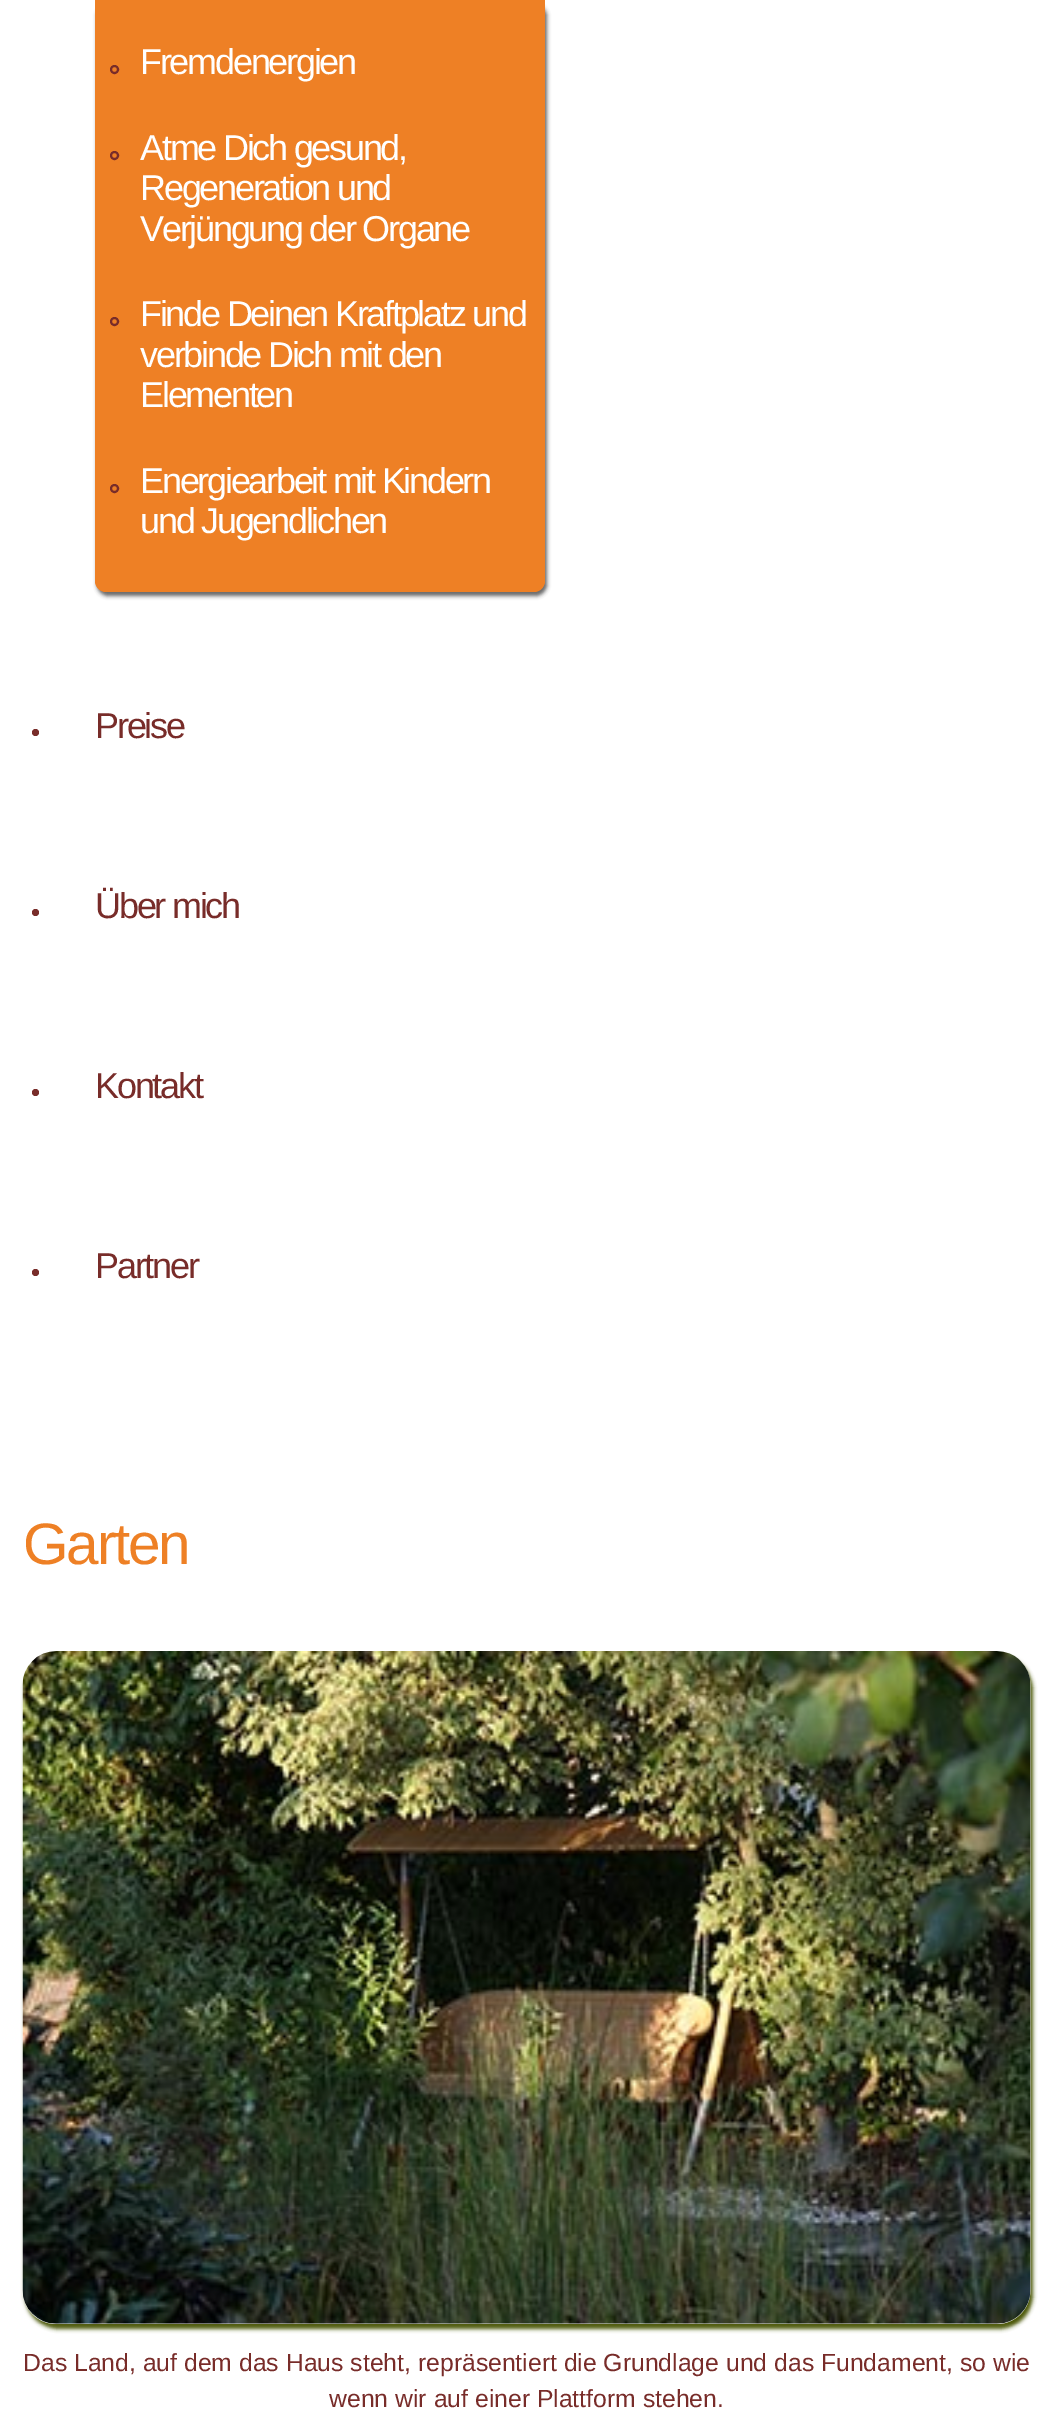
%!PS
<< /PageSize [1051 2428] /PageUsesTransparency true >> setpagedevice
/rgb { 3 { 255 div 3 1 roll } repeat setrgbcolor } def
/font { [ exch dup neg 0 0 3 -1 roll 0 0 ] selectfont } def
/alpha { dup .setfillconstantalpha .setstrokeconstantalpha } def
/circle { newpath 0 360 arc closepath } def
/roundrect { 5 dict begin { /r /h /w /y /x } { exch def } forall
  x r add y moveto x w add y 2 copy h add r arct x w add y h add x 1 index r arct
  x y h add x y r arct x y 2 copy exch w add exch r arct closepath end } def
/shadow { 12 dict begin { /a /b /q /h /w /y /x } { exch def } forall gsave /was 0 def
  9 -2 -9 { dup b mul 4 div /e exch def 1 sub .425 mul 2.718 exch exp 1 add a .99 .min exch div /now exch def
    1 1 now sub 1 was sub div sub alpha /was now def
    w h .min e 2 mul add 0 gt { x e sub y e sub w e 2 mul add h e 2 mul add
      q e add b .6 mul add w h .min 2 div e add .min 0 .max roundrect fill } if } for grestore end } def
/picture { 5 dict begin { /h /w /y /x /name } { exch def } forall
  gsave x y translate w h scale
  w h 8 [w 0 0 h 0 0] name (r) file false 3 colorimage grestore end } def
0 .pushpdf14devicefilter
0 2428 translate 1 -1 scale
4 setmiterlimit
255 255 255 rgb
0 0 1051 2428 rectfill
102 102 102 rgb
97 5 450 591 11 2 1 shadow
238 128 37 rgb
95 0 moveto 545 0 lineto 545 581 lineto 545 587 540 592 534 592 curveto 106 592 lineto 100 592 95 587 95 581 curveto closepath fill
120 44 41 rgb
2 setlinewidth
114.5 69.5 3.5 circle stroke
114.5 155.5 3.5 circle stroke
114.5 321.5 3.5 circle stroke
114.5 488.5 3.5 circle stroke
35.5 732.5 3.5 circle fill
35.5 912.5 3.5 circle fill
35.5 1092.5 3.5 circle fill
35.5 1272.5 3.5 circle fill
76 88 8 rgb
25 1656 1008 673 34 2 1 shadow
(img/1.rgb) 22 1651 1009 673 picture
/LiberationSans-Regular 36 font
255 255 255 rgb
140 74 moveto -2.25 0 (Fremdenergien) ashow
140 160 moveto -2.25 0 (Atme Dich gesund,) ashow
140 200 moveto -2.25 0 (Regeneration und) ashow
140 241 moveto -2.25 0 (Verjüngung der Organe) ashow
140 326 moveto -2.25 0 (Finde Deinen Kraftplatz und) ashow
140 367 moveto -2.25 0 (verbinde Dich mit den) ashow
140 407 moveto -2.25 0 (Elementen) ashow
140 493 moveto -2.25 0 (Energiearbeit mit Kindern) ashow
140 533 moveto -2.25 0 (und Jugendlichen) ashow
120 44 41 rgb
95 738 moveto -2.25 0 (Preise) ashow
95 918 moveto -2.25 0 (Über mich) ashow
95 1098 moveto -2.25 0 (Kontakt) ashow
95 1278 moveto -2.25 0 (Partner) ashow
/LiberationSans-Regular 58.5 font
238 128 37 rgb
23 1564 moveto -2.25 0 (Garten) ashow
/LiberationSans-Regular 24.75 font
120 44 41 rgb
23 2371 moveto (Das Land, auf dem das Haus steht, repräsentiert die Grundlage und das Fundament, so wie) show
329 2407 moveto (wenn wir auf einer Plattform stehen.) show
.poppdf14devicefilter showpage
